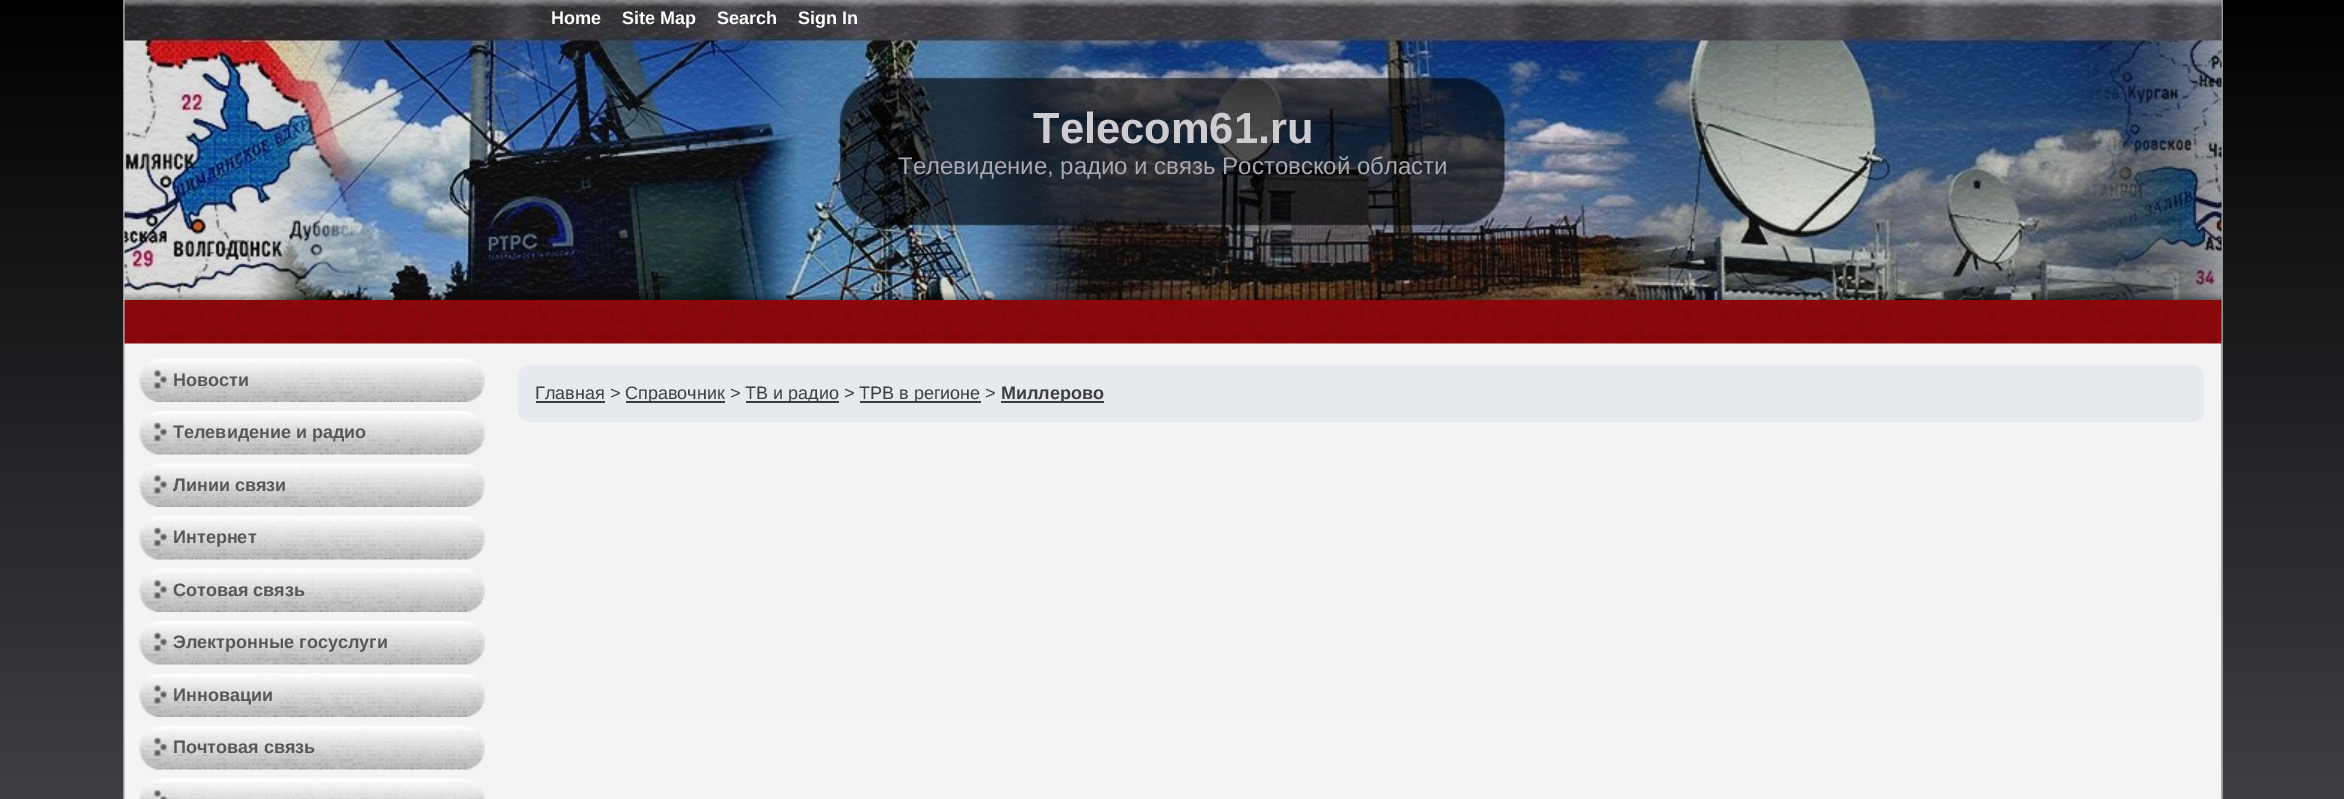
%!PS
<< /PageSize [2344 799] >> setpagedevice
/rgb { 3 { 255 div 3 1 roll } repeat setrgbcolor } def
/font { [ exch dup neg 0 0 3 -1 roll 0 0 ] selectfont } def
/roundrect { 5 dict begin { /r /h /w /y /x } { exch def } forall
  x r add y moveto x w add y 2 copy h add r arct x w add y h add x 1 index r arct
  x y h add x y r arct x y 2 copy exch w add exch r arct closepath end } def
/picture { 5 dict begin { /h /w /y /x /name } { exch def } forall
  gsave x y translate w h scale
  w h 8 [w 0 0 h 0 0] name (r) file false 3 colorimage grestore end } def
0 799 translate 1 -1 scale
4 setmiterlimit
255 255 255 rgb
0 0 2344 799 rectfill
(img/1.rgb) 0 0 2344 799 picture
(img/2.rgb) 123 0 2099 2 picture
(img/3.rgb) 123 0 2099 2 picture
(img/6.rgb) 123 1 2099 798 picture
(img/8.rgb) 2221 1 2 798 picture
(img/4.rgb) 2221 0 2 2 picture
(img/5.rgb) 2221 0 2 2 picture
(img/7.rgb) 124 0 2098 300 picture
(img/9.rgb) 124 300 2098 44 picture
(img/10.rgb) 139 358 319 44 picture
(img/11.rgb) 457 358 28 44 picture
(img/12.rgb) 139 411 319 44 picture
(img/13.rgb) 457 411 28 44 picture
(img/14.rgb) 139 463 319 44 picture
(img/15.rgb) 457 463 28 44 picture
(img/16.rgb) 139 516 319 44 picture
(img/17.rgb) 457 516 28 44 picture
(img/18.rgb) 139 568 319 44 picture
(img/19.rgb) 457 568 28 44 picture
(img/20.rgb) 139 621 319 44 picture
(img/21.rgb) 457 621 28 44 picture
(img/22.rgb) 139 673 319 44 picture
(img/23.rgb) 457 673 28 44 picture
(img/24.rgb) 139 726 319 44 picture
(img/25.rgb) 457 726 28 44 picture
(img/26.rgb) 139 778 319 21 picture
(img/27.rgb) 457 778 28 21 picture
230 233 238 rgb
518 365 1686 57 12 roundrect fill
[
  [536 401 69 2 61 62 61]
  [626 401 99 2 61 62 61]
  [746 401 93 2 61 62 61]
  [860 401 121 2 61 62 61]
  [1001 401 103 2 61 62 61]
] { aload pop rgb rectfill } forall
/LiberationSans-Bold 18 font
255 255 255 rgb
[
  [(Home) 551 24]
  [(Site Map) 622 24]
  [(Search) 717 24]
  [(Sign In) 798 24]
] { aload pop moveto show } forall
/LiberationSans-Bold 43.5 font
206 204 209 rgb
1033 143 moveto (Telecom61.ru) show
/LiberationSans-Regular 24 font
172 169 177 rgb
898 174 moveto (Телевидение, радио и связь Ростовской области) show
/LiberationSans-Bold 18 font
86 88 86 rgb
[
  [(Новости) 173 386]
  [(Телевидение и радио) 173 438]
  [(Линии связи) 173 491]
  [(Интернет) 173 543]
  [(Сотовая связь) 173 596]
  [(Электронные госуслуги) 173 648]
  [(Инновации) 173 701]
  [(Почтовая связь) 173 753]
] { aload pop moveto show } forall
/LiberationSans-Regular 18 font
61 62 61 rgb
[
  [(Главная >) 535 399]
  [(Справочник >) 625 399]
  [(ТВ и радио >) 745 399]
  [(ТРВ в регионе >) 859 399]
] { aload pop moveto show } forall
/LiberationSans-Bold 18 font
1001 399 moveto (Миллерово) show
showpage
